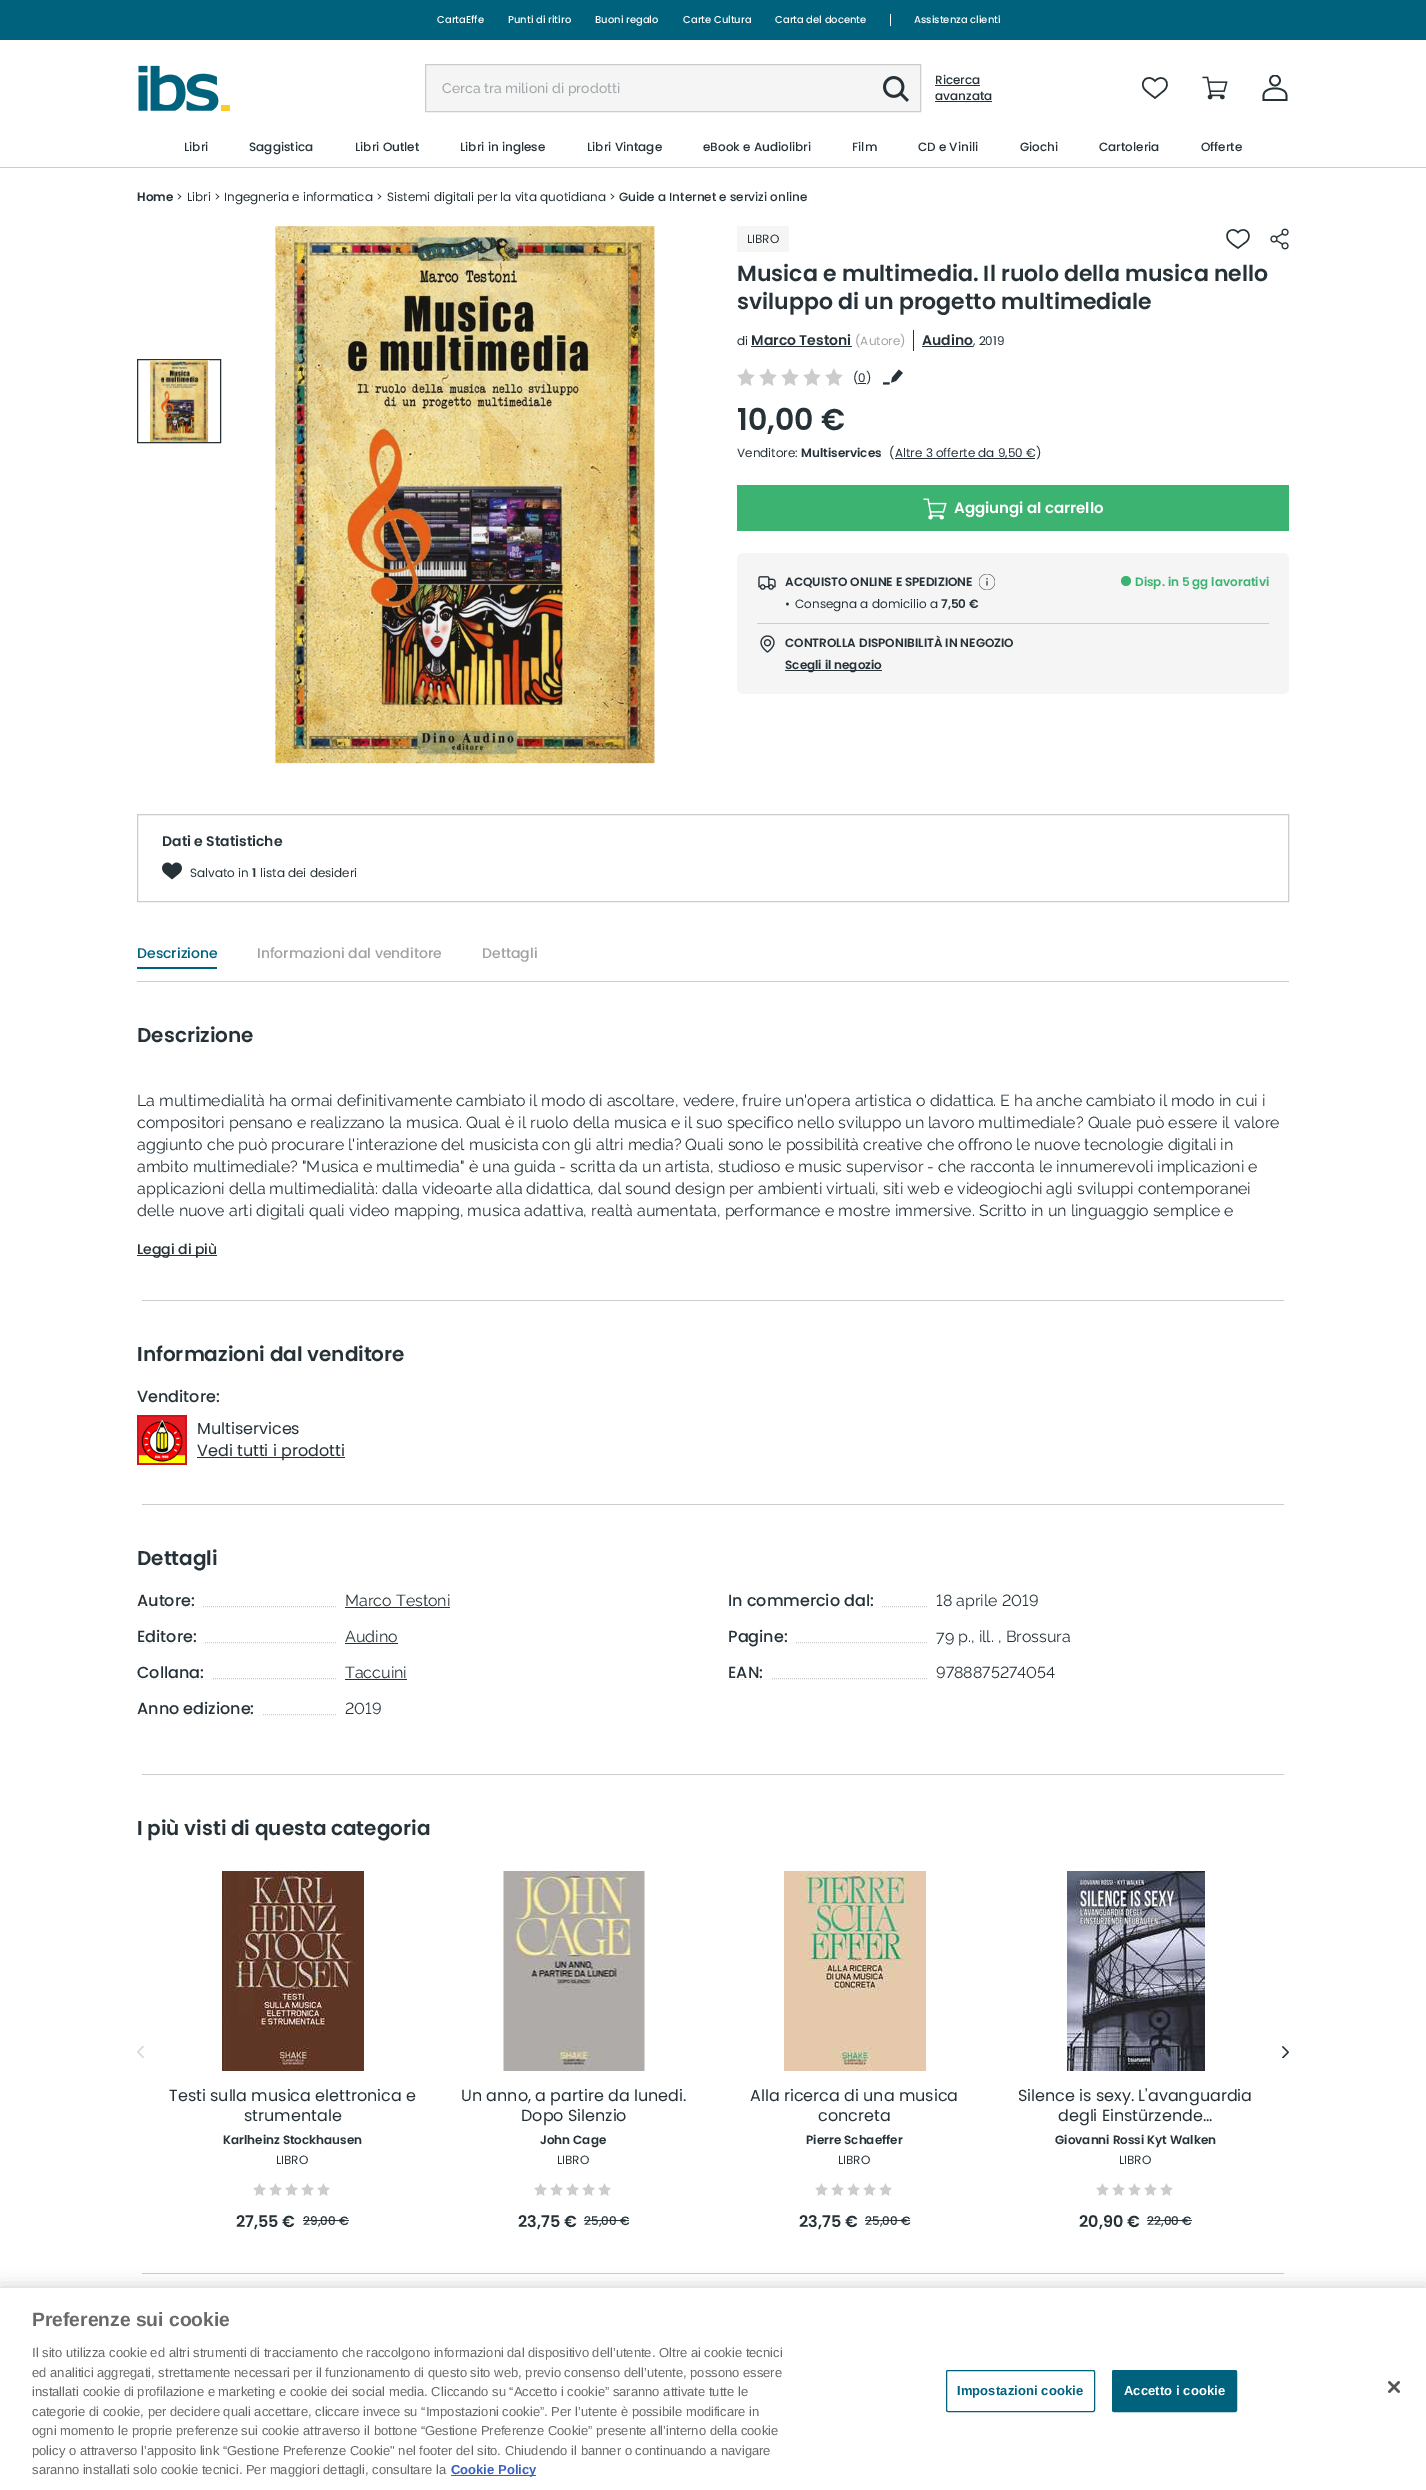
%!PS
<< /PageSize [1426 2490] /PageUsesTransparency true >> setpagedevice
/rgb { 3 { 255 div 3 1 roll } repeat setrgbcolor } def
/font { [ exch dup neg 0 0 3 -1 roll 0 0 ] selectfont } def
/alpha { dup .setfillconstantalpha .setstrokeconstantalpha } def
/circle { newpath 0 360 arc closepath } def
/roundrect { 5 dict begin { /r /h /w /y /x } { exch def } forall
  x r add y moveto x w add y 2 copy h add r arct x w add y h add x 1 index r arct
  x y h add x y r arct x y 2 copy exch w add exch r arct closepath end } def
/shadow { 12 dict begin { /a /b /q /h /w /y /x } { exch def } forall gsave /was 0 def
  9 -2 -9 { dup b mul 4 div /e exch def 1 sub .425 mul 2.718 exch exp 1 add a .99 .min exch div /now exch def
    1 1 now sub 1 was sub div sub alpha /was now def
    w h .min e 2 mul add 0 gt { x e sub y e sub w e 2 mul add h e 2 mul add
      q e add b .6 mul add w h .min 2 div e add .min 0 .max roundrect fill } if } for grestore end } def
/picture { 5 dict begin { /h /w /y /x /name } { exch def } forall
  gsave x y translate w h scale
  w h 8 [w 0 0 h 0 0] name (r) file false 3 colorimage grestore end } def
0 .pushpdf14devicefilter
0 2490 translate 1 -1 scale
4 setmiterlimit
255 255 255 rgb
0 0 1426 2490 rectfill
0 98 125 rgb
0 0 1426 40 rectfill
255 255 255 rgb
890 14 1 12 rectfill
(img/1.rgb) 138 65 92 46 picture
245 245 245 rgb
425.5 64.5 moveto 920.5 64.5 lineto 920.5 111.5 lineto 425.5 111.5 lineto closepath gsave fill grestore
204 204 204 rgb
stroke
(img/2.rgb) 883 76 26 26 picture
38 50 56 rgb
935 85 45 1 rectfill
935 101 57 1 rectfill
1.5 setlinewidth
1155 98 moveto 1152 95.5 1146 91.5 1144 88.5 curveto 1139.5 81 1148.5 73.5 1155 81 curveto 1162.5 72.5 1172.5 83.5 1163.5 91 curveto closepath stroke
(img/3.rgb) 1202 76 26 24 picture
gsave
1262 75 26 26 rectclip
1.7 setlinewidth
1275 80.5 5 circle stroke
grestore
1.7 setlinewidth
1263.5 100 moveto 1263.5 97.5 1263 94.5 1264.5 92.5 curveto 1267.5 87 1282.5 87 1285.5 92.5 curveto 1287 94.5 1286.5 97.5 1286.5 100 curveto closepath stroke
204 204 204 rgb
0 167 1426 1 rectfill
38 50 56 rgb
1 setlinewidth
137.5 359.5 83 83 rectstroke
(img/4.rgb) 150 360 59 82 picture
(img/5.rgb) 275 226 380 538 picture
245 245 245 rgb
737 226 52 26 rectfill
38 50 56 rgb
1.4 setlinewidth
1238 248 moveto 1235 246 1229.5 242.5 1228 239.5 curveto 1224 232.5 1232.5 226 1238 232.5 curveto 1244.5 225 1254 235 1246 242 curveto closepath stroke
(img/6.rgb) 1270 228 19 22 picture
[
  [751 346 101 1 38 50 56]
  [913 330 1 21 38 50 56]
  [922 346 51 1 38 50 56]
] { aload pop rgb rectfill } forall
(img/7.rgb) 737 368 106 18 picture
858 383 8 1 rectfill
(img/8.rgb) 883 369 20 16 picture
895 458 140 1 rectfill
60 179 113 rgb
737 485 552 46 rectfill
(img/9.rgb) 923 498 24 22 picture
245 245 245 rgb
737 553 552 141 6 roundrect fill
204 204 204 rgb
757 623 512 1 rectfill
(img/10.rgb) 758 576 18 14 picture
(img/11.rgb) 979 574 16 16 picture
60 179 113 rgb
1126 581 5 circle fill
(img/12.rgb) 760 635 15 18 picture
38 50 56 rgb
785 670 97 1 rectfill
204 204 204 rgb
1 setlinewidth
137.5 814.5 1151 87 rectstroke
(img/13.rgb) 162 862 20 18 picture
[
  [137 981 1152 1 204 204 204]
  [137 967 80 2 0 98 125]
  [137 1255 80 1 38 50 56]
  [142 1300 1142 1 204 204 204]
] { aload pop rgb rectfill } forall
(img/14.rgb) 137 1415 50 50 picture
38 50 56 rgb
197 1457 148 1 rectfill
204 204 204 rgb
142 1504 1142 1 rectfill
[1 1] 0 setdash
137 1606.5 moveto 337 1606.5 lineto stroke
255 255 255 rgb
137 1606 65 1 rectfill
38 50 56 rgb
345 1607 105 1 rectfill
204 204 204 rgb
137 1642.5 moveto 337 1642.5 lineto stroke
255 255 255 rgb
137 1642 67 1 rectfill
38 50 56 rgb
345 1643 53 1 rectfill
204 204 204 rgb
137 1678.5 moveto 337 1678.5 lineto stroke
255 255 255 rgb
137 1678 75 1 rectfill
38 50 56 rgb
345 1679 62 1 rectfill
204 204 204 rgb
137 1714.5 moveto 337 1714.5 lineto stroke
255 255 255 rgb
137 1714 125 1 rectfill
204 204 204 rgb
728 1606.5 moveto 928 1606.5 lineto stroke
255 255 255 rgb
728 1606 153 1 rectfill
204 204 204 rgb
728 1642.5 moveto 928 1642.5 lineto stroke
255 255 255 rgb
728 1642 67 1 rectfill
204 204 204 rgb
728 1678.5 moveto 928 1678.5 lineto stroke
255 255 255 rgb
728 1678 43 1 rectfill
204 204 204 rgb
142 1774 1142 1 rectfill
(img/15.rgb) 137 2046 7 12 picture
(img/16.rgb) 1282 2046 7 12 picture
(img/17.rgb) 222 1871 142 200 picture
(img/18.rgb) 253 2183 77 13 picture
38 50 56 rgb
303 2220 46 1 rectfill
(img/19.rgb) 503 1871 142 200 picture
(img/18.rgb) 534 2183 77 13 picture
584 2220 45 1 rectfill
(img/20.rgb) 784 1871 142 200 picture
(img/18.rgb) 815 2183 77 13 picture
865 2220 45 1 rectfill
(img/21.rgb) 1067 1871 138 200 picture
(img/18.rgb) 1096 2183 77 13 picture
1147 2220 45 1 rectfill
204 204 204 rgb
142 2273 1142 1 rectfill
0 0 0 rgb
0 2288 1426 202 0 9 0.2 shadow
255 255 255 rgb
0 2288 1426 202 rectfill
56 96 190 rgb
451 2475 85 1 rectfill
0 98 125 rgb
[] 0 setdash
946.5 2370.5 148 41 1.5 roundrect stroke
1112.5 2370.5 124 41 1.5 roundrect gsave fill grestore
stroke
(img/22.rgb) 1388 2381 12 12 picture
/Poppins-Medium 10 font
255 255 255 rgb
[
  [(CartaEffe) 437 23]
  [(Punti di ritiro) 508 23]
  [(Buoni regalo) 595 23]
  [(Carte Cultura) 683 23]
  [(Carta del docente) 775 23]
  [(Assistenza clienti) 914 23]
] { aload pop moveto show } forall
/Raleway-Medium 14 font
162 167 169 rgb
442 93 moveto (Cerca tra milioni di prodotti) show
/Poppins-Medium 12 font
38 50 56 rgb
[
  [(Ricerca) 935 84]
  [(avanzata) 935 100]
  [(Libri) 184 151]
  [(Saggistica) 249 151]
  [(Libri Outlet) 355 151]
  [(Libri in inglese) 460 151]
  [(Libri Vintage) 587 151]
  [(eBook e Audiolibri) 703 151]
  [(Film) 852 151]
  [(CD e Vinili) 918 151]
  [(Giochi) 1020 151]
  [(Cartoleria) 1099 151]
  [(Offerte) 1201 151]
] { aload pop moveto show } forall
/Poppins-SemiBold 12 font
137 201 moveto (Home) show
/Poppins-Regular 12 font
[
  [(>) 176 201]
  [(Libri >) 187 201]
  [(Ingegneria e informatica >) 224 201]
  [(Sistemi digitali per la vita quotidiana >) 387 201]
] { aload pop moveto show } forall
/Poppins-Medium 12 font
619 201 moveto (Guide a Internet e servizi online) show
/Poppins-Regular 12 font
747 243 moveto (LIBRO) show
/Poppins-SemiBold 22 font
737 281 moveto (Musica e multimedia. Il ruolo della musica nello) show
737 309 moveto (sviluppo di un progetto multimediale) show
/Poppins-Regular 12 font
737 345 moveto (di) show
/Poppins-SemiBold 14 font
751 345 moveto (Marco Testoni) show
/Poppins-Regular 12 font
162 162 162 rgb
855 345 moveto (\(Autore\)) show
/Poppins-SemiBold 14 font
38 50 56 rgb
922 345 moveto (Audino) show
/Poppins-Regular 12 font
973 345 moveto (, 2019) show
853 382 moveto (\(0\)) show
/Poppins-SemiBold 30 font
737 430 moveto (10,00 €) show
/Poppins-Regular 12 font
737 457 moveto (Venditore:) show
/Poppins-SemiBold 12 font
801 457 moveto (Multiservices) show
/Poppins-Regular 12 font
889 457 moveto (\() show
895 457 moveto (Altre 3 offerte da 9,50 €\)) show
/Poppins-SemiBold 15 font
255 255 255 rgb
954 513 moveto (Aggiungi al carrello) show
/Poppins-SemiBold 12 font
38 50 56 rgb
785 586 moveto (ACQUISTO ONLINE E SPEDIZIONE) show
/Poppins-Regular 12 font
785 608 moveto (•) show
795 608 moveto (Consegna a domicilio a) show
/Poppins-SemiBold 12 font
941 608 moveto (7,50 €) show
60 179 113 rgb
1135 586 moveto (Disp. in 5 gg lavorativi) show
38 50 56 rgb
785 647 moveto (CONTROLLA DISPONIBILITÀ IN NEGOZIO) show
785 669 moveto (Scegli il negozio) show
/Poppins-SemiBold 14 font
162 846 moveto (Dati e Statistiche) show
/Poppins-Regular 12 font
190 877 moveto (Salvato in) show
/Poppins-SemiBold 12 font
252 877 moveto (1) show
/Poppins-Regular 12 font
260 877 moveto (lista dei desideri) show
/Poppins-Medium 14 font
0 98 125 rgb
137 958 moveto (Descrizione) show
162 162 162 rgb
257 958 moveto (Informazioni dal venditore) show
482 958 moveto (Dettagli) show
/Poppins-SemiBold 20 font
38 50 56 rgb
137 1042 moveto (Descrizione) show
/Raleway-Regular 16 font
[
  [(La multimedialità ha ormai definitivamente cambiato il modo di ascoltare, vedere, fruire un'opera artistica o didattica. E ha anche cambiato il modo in cui i) 137 1106]
  [(compositori pensano e realizzano la musica. Qual è il ruolo della musica e il suo specifico nello sviluppo un lavoro multimediale? Quale può essere il valore) 137 1128]
  [(aggiunto che può procurare l'interazione del musicista con gli altri media? Quali sono le possibilità creative che offrono le nuove tecnologie digitali in) 137 1150]
  [(ambito multimediale? "Musica e multimedia" è una guida - scritta da un artista, studioso e music supervisor - che racconta le innumerevoli implicazioni e) 137 1172]
  [(applicazioni della multimedialità: dalla videoarte alla didattica, dal sound design per ambienti virtuali, siti web e videogiochi agli sviluppi contemporanei) 137 1194]
  [(delle nuove arti digitali quali video mapping, musica adattiva, realtà aumentata, performance e mostre immersive. Scritto in un linguaggio semplice e) 137 1216]
] { aload pop moveto show } forall
/Poppins-Medium 14 font
137 1254 moveto (Leggi di più) show
/Poppins-SemiBold 20 font
137 1361 moveto (Informazioni dal venditore) show
/Poppins-Medium 16 font
137 1402 moveto (Venditore:) show
/Poppins-Regular 16 font
197 1434 moveto (Multiservices) show
197 1456 moveto (Vedi tutti i prodotti) show
/Poppins-SemiBold 20 font
137 1565 moveto (Dettagli) show
/Poppins-Medium 16 font
137 1606 moveto (Autore:) show
/Raleway-Regular 16 font
345 1606 moveto (Marco Testoni) show
/Poppins-Medium 16 font
137 1642 moveto (Editore:) show
/Raleway-Regular 16 font
345 1642 moveto (Audino) show
/Poppins-Medium 16 font
137 1678 moveto (Collana:) show
/Raleway-Regular 16 font
345 1678 moveto (Taccuini) show
/Poppins-Medium 16 font
137 1714 moveto (Anno edizione:) show
/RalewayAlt-Regular 16 font
345 1714 moveto (2019) show
/Poppins-Medium 16 font
728 1606 moveto (In commercio dal:) show
/RalewayAlt-Regular 16 font
936 1606 moveto (18 aprile 2019) show
/Poppins-Medium 16 font
728 1642 moveto (Pagine:) show
/Raleway-Regular 16 font
936 1642 moveto (79 p., ill. , Brossura) show
/Poppins-Medium 16 font
728 1678 moveto (EAN:) show
/RalewayAlt-Regular 16 font
936 1678 moveto (9788875274054) show
/Poppins-SemiBold 20 font
137 1835 moveto (I più visti di questa categoria) show
/Poppins-Regular 16 font
169 2101 moveto (Testi sulla musica elettronica e) show
244 2121 moveto (strumentale) show
/Poppins-SemiBold 12 font
223 2144 moveto (Karlheinz Stockhausen) show
/Poppins-Regular 12 font
276 2164 moveto (LIBRO) show
/Poppins-SemiBold 16 font
236 2227 moveto (27,55 €) show
/Poppins-Medium 12 font
303 2225 moveto (29,00 €) show
/Poppins-Regular 16 font
461 2101 moveto (Un anno, a partire da lunedi.) show
521 2121 moveto (Dopo Silenzio) show
/Poppins-SemiBold 12 font
540 2144 moveto (John Cage) show
/Poppins-Regular 12 font
557 2164 moveto (LIBRO) show
/Poppins-SemiBold 16 font
518 2227 moveto (23,75 €) show
/Poppins-Medium 12 font
584 2225 moveto (25,00 €) show
/Poppins-Regular 16 font
750 2101 moveto (Alla ricerca di una musica) show
818 2121 moveto (concreta) show
/Poppins-SemiBold 12 font
806 2144 moveto (Pierre Schaeffer) show
/Poppins-Regular 12 font
838 2164 moveto (LIBRO) show
/Poppins-SemiBold 16 font
799 2227 moveto (23,75 €) show
/Poppins-Medium 12 font
865 2225 moveto (25,00 €) show
/Poppins-Regular 16 font
1018 2101 moveto (Silence is sexy. L'avanguardia) show
1058 2121 moveto (degli Einstürzende...) show
/Poppins-SemiBold 12 font
1055 2144 moveto (Giovanni Rossi Kyt Walken) show
/Poppins-Regular 12 font
1119 2164 moveto (LIBRO) show
/Poppins-SemiBold 16 font
1079 2227 moveto (20,90 €) show
/Poppins-Medium 12 font
1147 2225 moveto (22,00 €) show
/LiberationSans-Bold 19.25 font
105 105 105 rgb
32 2326 moveto (Preferenze sui cookie) show
/LiberationSans-Regular 13 font
[
  [(Il sito utilizza cookie ed altri strumenti di tracciamento che raccolgono informazioni dal dispositivo dell’utente. Oltre ai cookie tecnici) 32 2357]
  [(ed analitici aggregati, strettamente necessari per il funzionamento di questo sito web, previo consenso dell’utente, possono essere) 32 2377]
  [(installati cookie di profilazione e marketing e cookie dei social media. Cliccando su “Accetto i cookie” saranno attivate tutte le) 32 2396]
  [(categorie di cookie, per decidere quali accettare, cliccare invece su “Impostazioni cookie”. Per l’utente è possibile modificare in) 32 2416]
  [(ogni momento le proprie preferenze sui cookie attraverso il bottone “Gestione Preferenze Cookie” presente all’interno della cookie) 32 2435]
  [(policy o attraverso l’apposito link “Gestione Preferenze Cookie" nel footer del sito. Chiudendo il banner o continuando a navigare) 32 2455]
  [(saranno installati solo cookie tecnici. Per maggiori dettagli, consultare la) 32 2474]
] { aload pop moveto show } forall
/LiberationSans-Bold 13 font
56 96 190 rgb
451 2474 moveto (Cookie Policy) show
0 98 125 rgb
957 2395 moveto 0.1 0 (Impostazioni cookie) ashow
255 255 255 rgb
1124 2395 moveto 0.1 0 (Accetto i cookie) ashow
.poppdf14devicefilter showpage
